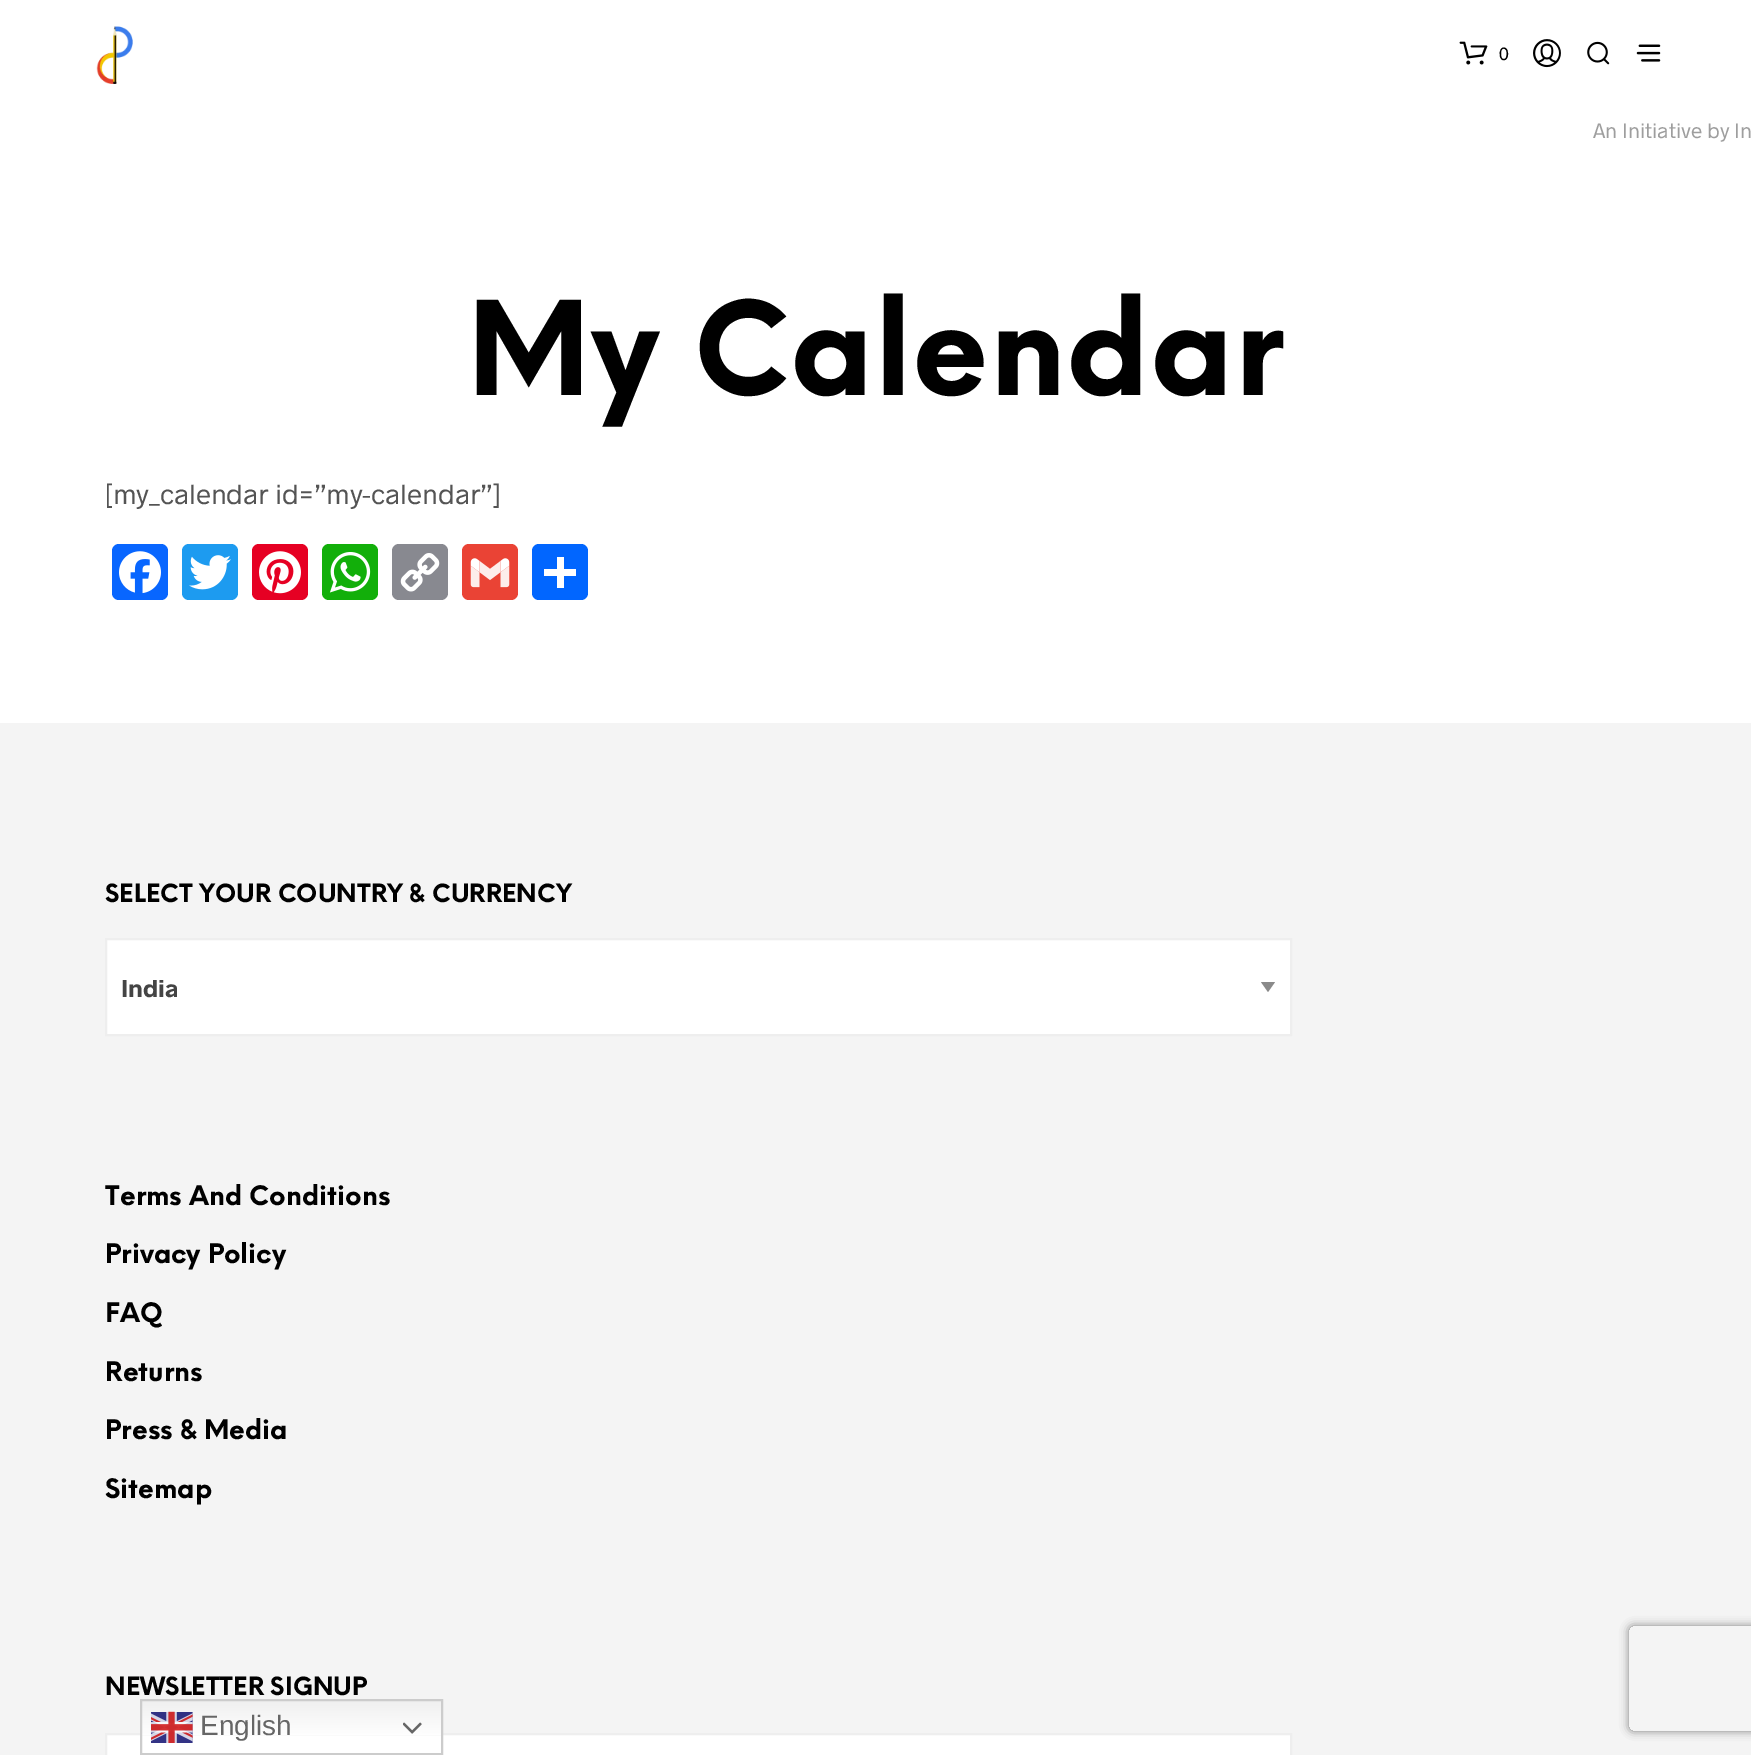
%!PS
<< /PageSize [1751 1755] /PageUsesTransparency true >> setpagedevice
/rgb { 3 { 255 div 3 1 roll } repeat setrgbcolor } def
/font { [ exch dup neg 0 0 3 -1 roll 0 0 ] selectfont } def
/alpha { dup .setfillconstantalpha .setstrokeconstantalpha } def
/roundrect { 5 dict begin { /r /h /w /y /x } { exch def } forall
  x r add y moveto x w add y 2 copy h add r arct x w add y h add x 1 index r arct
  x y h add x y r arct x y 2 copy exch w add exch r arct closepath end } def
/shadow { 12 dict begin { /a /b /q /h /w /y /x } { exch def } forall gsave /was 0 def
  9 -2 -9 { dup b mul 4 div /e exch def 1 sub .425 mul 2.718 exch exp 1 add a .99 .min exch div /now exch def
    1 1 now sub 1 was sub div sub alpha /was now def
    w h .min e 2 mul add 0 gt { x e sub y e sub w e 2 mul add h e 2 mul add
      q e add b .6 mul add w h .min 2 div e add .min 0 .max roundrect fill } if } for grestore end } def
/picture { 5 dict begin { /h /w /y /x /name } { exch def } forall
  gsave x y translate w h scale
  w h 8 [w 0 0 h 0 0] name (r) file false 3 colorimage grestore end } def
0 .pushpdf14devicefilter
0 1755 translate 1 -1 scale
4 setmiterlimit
255 255 255 rgb
0 0 1751 1755 rectfill
(img/1.rgb) 96 26 37 58 picture
(img/2.rgb) 1459 41 29 24 picture
(img/3.rgb) 1533 39 28 29 picture
(img/4.rgb) 1587 41 23 24 picture
(img/5.rgb) 1636 44 25 18 picture
8 102 255 rgb
112 544 56 56 7 roundrect fill
(img/6.rgb) 119 551 42 43 picture
29 155 240 rgb
182 544 56 56 7 roundrect fill
(img/7.rgb) 189 555 42 35 picture
230 0 35 rgb
252 544 56 56 7 roundrect fill
(img/8.rgb) 259 551 42 43 picture
18 175 10 rgb
322 544 56 56 7 roundrect fill
(img/9.rgb) 329 552 42 41 picture
136 137 144 rgb
392 544 56 56 7 roundrect fill
(img/10.rgb) 400 553 40 39 picture
234 67 53 rgb
462 544 56 56 7 roundrect fill
(img/11.rgb) 470 558 40 30 picture
1 102 255 rgb
532 544 56 56 7 roundrect fill
[
  [557 557 7 31 255 255 255]
  [544 569 32 7 255 255 255]
  [0 723 1751 1032 244 244 244]
  [107 940 1183 94 255 255 255]
] { aload pop rgb rectfill } forall
138 138 138 rgb
1261 982 moveto 1275 982 lineto 1268 992 lineto closepath fill
238 238 238 rgb
2 setlinewidth
106 939 1185 96 rectstroke
255 255 255 rgb
106 1734 moveto 1291 1734 lineto 1291 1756 lineto 106 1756 lineto closepath gsave fill grestore
238 238 238 rgb
stroke
gsave 142 1701 moveto 441 1701 lineto 441 1735 lineto 142 1735 lineto closepath clip newpath
<< /ShadingType 2 /ColorSpace /DeviceRGB /Coords [291 1699 291 1755] /Extend [true true] /Function << /FunctionType 3 /Domain [0 1] /Functions [<< /FunctionType 2 /Domain [0 1] /C0 [0.937 0.937 0.937] /C1 [1 1 1] /N 1 >> << /FunctionType 2 /Domain [0 1] /C0 [1 1 1] /C1 [1 1 1] /N 1 >>] /Bounds [0.7] /Encode [0 1 0 1] >> >> shfill grestore
204 204 204 rgb
141 1700 301 54 rectstroke
(img/12.rgb) 151 1711 42 32 picture
(img/13.rgb) 403 1722 19 12 picture
gsave
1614 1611 moveto 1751 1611 lineto 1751 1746 lineto 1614 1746 lineto closepath 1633 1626 moveto 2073 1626 lineto 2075 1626 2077 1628 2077 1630 curveto 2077 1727 lineto 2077 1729 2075 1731 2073 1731 curveto 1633 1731 lineto 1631 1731 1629 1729 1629 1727 curveto 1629 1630 lineto 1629 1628 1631 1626 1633 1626 curveto closepath eoclip newpath
128 128 128 rgb
1629 1626 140 105 4 4.5 1 shadow
grestore
/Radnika-Regular 18 font
0 0 0 rgb
1499 60 moveto (0) show
/Radnika-Regular 21 font
158 158 158 rgb
1593 138 moveto (An Initiative by In) show
/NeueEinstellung-Bold 127 font
0 0 0 rgb
467 395 moveto (My Calendar) show
/Radnika-Regular 28 font
84 84 84 rgb
105 504 moveto ([my_calendar id=”my-calendar”]) show
/NeueEinstellung-Bold 24.5 font
0 0 0 rgb
105 902 moveto (SELECT YOUR COUNTRY & CURRENCY) show
/Radnika-Bold 24.5 font
68 68 68 rgb
121 997 moveto (India) show
/NeueEinstellung-Bold 26.25 font
0 0 0 rgb
[
  [(Terms And Conditions) 105 1205]
  [(Privacy Policy) 105 1263]
  [(FAQ) 105 1322]
  [(Returns) 105 1381]
  [(Press & Media) 105 1439]
  [(Sitemap) 105 1498]
] { aload pop moveto show } forall
/NeueEinstellung-Bold 24.5 font
105 1695 moveto (NEWSLETTER SIGNUP) show
/LiberationSans-Regular 28 font
102 102 102 rgb
200 1735 moveto (English) show
.poppdf14devicefilter showpage
